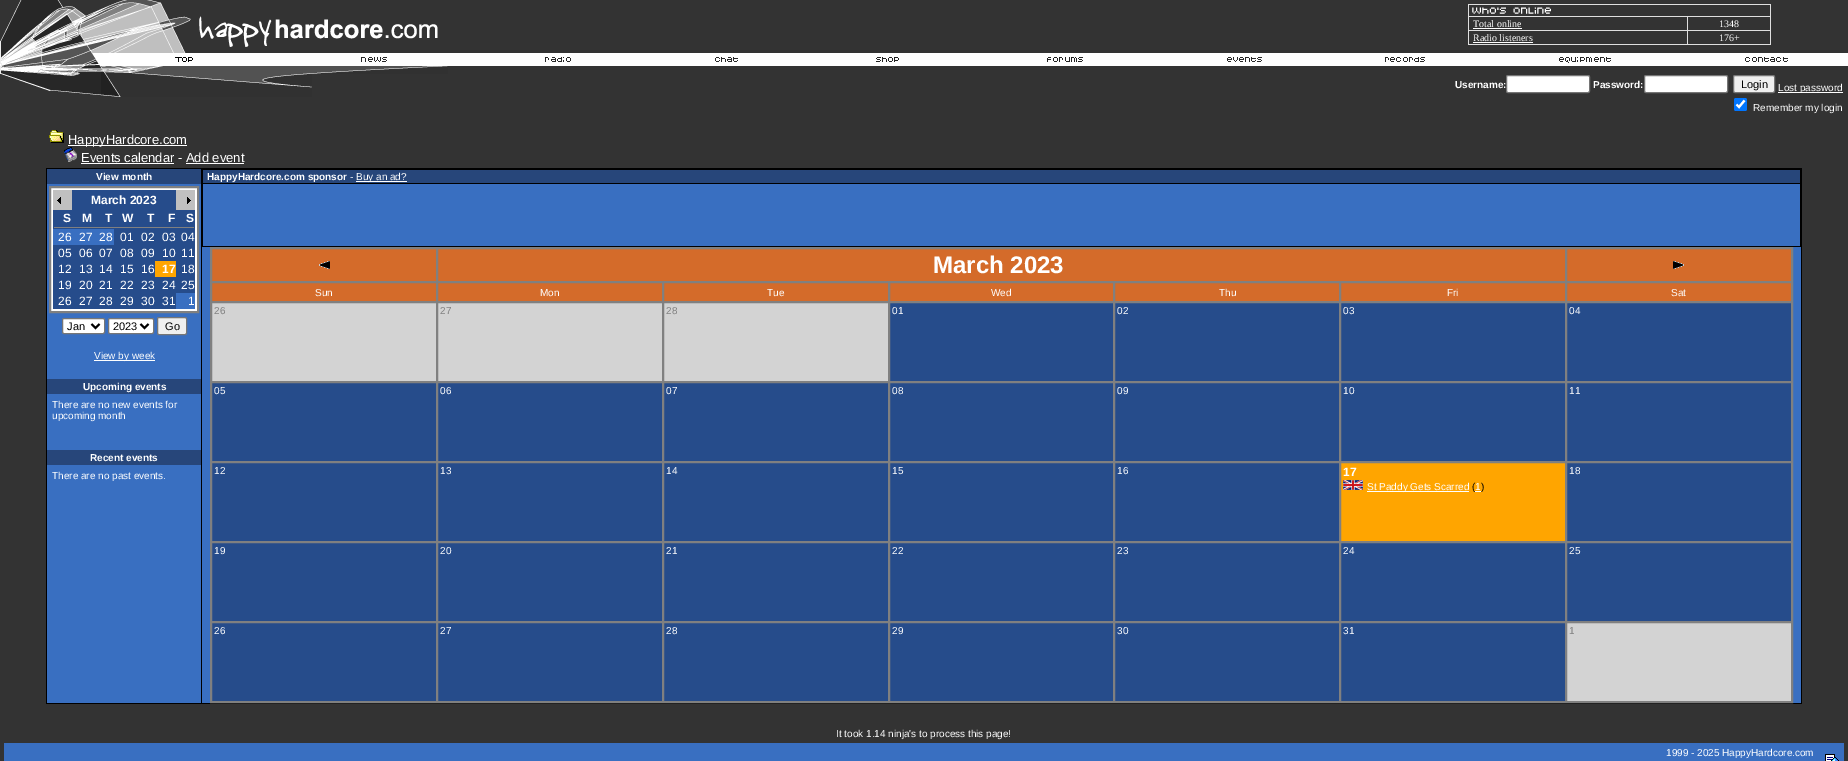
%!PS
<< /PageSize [1848 761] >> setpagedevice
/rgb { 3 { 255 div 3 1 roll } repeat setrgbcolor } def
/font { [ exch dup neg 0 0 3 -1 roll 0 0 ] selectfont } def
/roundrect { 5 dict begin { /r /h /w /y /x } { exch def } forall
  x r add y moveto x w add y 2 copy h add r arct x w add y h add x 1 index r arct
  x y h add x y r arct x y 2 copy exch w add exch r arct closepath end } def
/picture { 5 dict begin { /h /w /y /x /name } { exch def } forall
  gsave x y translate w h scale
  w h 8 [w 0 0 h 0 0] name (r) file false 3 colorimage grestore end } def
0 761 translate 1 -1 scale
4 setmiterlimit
51 51 51 rgb
0 0 1848 761 rectfill
(img/1.rgb) 0 0 101 96 picture
(img/2.rgb) 101 0 337 53 picture
223 223 223 rgb
1468 4 303 41 rectfill
51 51 51 rgb
1469 5 301 11 rectfill
(img/3.rgb) 1472 7 79 7 picture
[
  [1469 17 218 13 51 51 51]
  [1473 28 49 1 255 255 255]
  [1688 17 82 13 51 51 51]
  [1469 31 218 13 51 51 51]
  [1473 42 60 1 255 255 255]
  [1688 31 82 13 51 51 51]
  [101 53 1747 13 255 255 255]
] { aload pop rgb rectfill } forall
(img/4.rgb) 175 57 18 5 picture
(img/5.rgb) 361 57 26 5 picture
(img/6.rgb) 545 57 26 5 picture
(img/7.rgb) 715 57 23 5 picture
(img/8.rgb) 876 57 23 5 picture
(img/9.rgb) 1047 57 36 5 picture
(img/10.rgb) 1227 57 35 5 picture
(img/11.rgb) 1385 57 40 5 picture
(img/12.rgb) 1559 57 52 6 picture
(img/13.rgb) 1745 57 43 5 picture
(img/14.rgb) 101 66 211 31 picture
(img/15.rgb) 312 66 136 8 picture
1506.5 75.5 83 17 1.5 roundrect gsave fill grestore
118 118 118 rgb
stroke
255 255 255 rgb
1644.5 75.5 83 17 1.5 roundrect gsave fill grestore
118 118 118 rgb
stroke
239 239 239 rgb
1733.5 75.5 41 17 1.5 roundrect gsave fill grestore
118 118 118 rgb
stroke
255 255 255 rgb
1778 92 65 1 rectfill
0 117 255 rgb
1734 98 13 13 2 roundrect fill
255 255 255 rgb
2.1 setlinewidth
1736.5 104.5 moveto 1739 107 lineto 1744.5 100.5 lineto stroke
(img/16.rgb) 49 130 15 13 picture
68 145 119 1 rectfill
(img/17.rgb) 64 147 13 15 picture
[
  [81 163 93 1 255 255 255]
  [186 163 58 1 255 255 255]
  [46 168 1756 536 0 0 0]
  [47 184 154 519 57 111 193]
  [47 169 154 15 39 70 122]
  [51 188 146 123 255 255 255]
] { aload pop rgb rectfill } forall
128 128 128 rgb
1 setlinewidth
49.5 186.5 149 126 rectstroke
50.5 187.5 147 124 rectstroke
38 76 139 rgb
53 210 142 99 rectfill
192 192 192 rgb
53 190 142 20 rectfill
(img/18.rgb) 57 197 4 7 picture
38 76 139 rgb
72 190 104 20 rectfill
(img/19.rgb) 187 197 4 7 picture
[
  [54 227 140 1 128 128 128]
  [53 229 61 16 57 111 193]
  [155 261 21 16 255 165 0]
  [176 293 19 16 57 111 193]
] { aload pop rgb rectfill } forall
255 255 255 rgb
62.5 318.5 42 15 1.5 roundrect gsave fill grestore
118 118 118 rgb
stroke
0 0 0 rgb
2 setlinewidth
91.5 324 moveto 95.5 328 lineto 99.5 324 lineto stroke
255 255 255 rgb
108.5 318.5 45 15 1.5 roundrect gsave fill grestore
118 118 118 rgb
1 setlinewidth
stroke
0 0 0 rgb
2 setlinewidth
140.5 324 moveto 144.5 328 lineto 148.5 324 lineto stroke
239 239 239 rgb
157.5 317.5 29 17 1.5 roundrect gsave fill grestore
118 118 118 rgb
1 setlinewidth
stroke
[
  [94 360 61 1 255 255 255]
  [47 379 154 15 39 70 122]
  [47 450 154 15 39 70 122]
  [202 247 1599 456 57 111 193]
  [203 170 1597 13 39 70 122]
  [356 181 51 1 255 255 255]
  [203 184 1597 62 57 111 193]
] { aload pop rgb rectfill } forall
128 128 128 rgb
210.5 247.5 1582 455 rectstroke
212 107 42 rgb
211.5 248.5 moveto 436.5 248.5 lineto 436.5 281.5 lineto 211.5 281.5 lineto closepath gsave fill grestore
128 128 128 rgb
stroke
(img/20.rgb) 319 261 11 8 picture
212 107 42 rgb
437.5 248.5 moveto 1565.5 248.5 lineto 1565.5 281.5 lineto 437.5 281.5 lineto closepath gsave fill grestore
128 128 128 rgb
stroke
212 107 42 rgb
1566.5 248.5 moveto 1791.5 248.5 lineto 1791.5 281.5 lineto 1566.5 281.5 lineto closepath gsave fill grestore
128 128 128 rgb
stroke
(img/21.rgb) 1673 261 11 8 picture
212 107 42 rgb
211.5 282.5 moveto 436.5 282.5 lineto 436.5 301.5 lineto 211.5 301.5 lineto closepath gsave fill grestore
128 128 128 rgb
stroke
212 107 42 rgb
437.5 282.5 moveto 662.5 282.5 lineto 662.5 301.5 lineto 437.5 301.5 lineto closepath gsave fill grestore
128 128 128 rgb
stroke
212 107 42 rgb
663.5 282.5 moveto 888.5 282.5 lineto 888.5 301.5 lineto 663.5 301.5 lineto closepath gsave fill grestore
128 128 128 rgb
stroke
212 107 42 rgb
889.5 282.5 moveto 1113.5 282.5 lineto 1113.5 301.5 lineto 889.5 301.5 lineto closepath gsave fill grestore
128 128 128 rgb
stroke
212 107 42 rgb
1114.5 282.5 moveto 1339.5 282.5 lineto 1339.5 301.5 lineto 1114.5 301.5 lineto closepath gsave fill grestore
128 128 128 rgb
stroke
212 107 42 rgb
1340.5 282.5 moveto 1565.5 282.5 lineto 1565.5 301.5 lineto 1340.5 301.5 lineto closepath gsave fill grestore
128 128 128 rgb
stroke
212 107 42 rgb
1566.5 282.5 moveto 1791.5 282.5 lineto 1791.5 301.5 lineto 1566.5 301.5 lineto closepath gsave fill grestore
128 128 128 rgb
stroke
211 211 211 rgb
211.5 302.5 moveto 436.5 302.5 lineto 436.5 381.5 lineto 211.5 381.5 lineto closepath gsave fill grestore
128 128 128 rgb
stroke
211 211 211 rgb
437.5 302.5 moveto 662.5 302.5 lineto 662.5 381.5 lineto 437.5 381.5 lineto closepath gsave fill grestore
128 128 128 rgb
stroke
211 211 211 rgb
663.5 302.5 moveto 888.5 302.5 lineto 888.5 381.5 lineto 663.5 381.5 lineto closepath gsave fill grestore
128 128 128 rgb
stroke
38 76 139 rgb
889.5 302.5 moveto 1113.5 302.5 lineto 1113.5 381.5 lineto 889.5 381.5 lineto closepath gsave fill grestore
128 128 128 rgb
stroke
38 76 139 rgb
1114.5 302.5 moveto 1339.5 302.5 lineto 1339.5 381.5 lineto 1114.5 381.5 lineto closepath gsave fill grestore
128 128 128 rgb
stroke
38 76 139 rgb
1340.5 302.5 moveto 1565.5 302.5 lineto 1565.5 381.5 lineto 1340.5 381.5 lineto closepath gsave fill grestore
128 128 128 rgb
stroke
38 76 139 rgb
1566.5 302.5 moveto 1791.5 302.5 lineto 1791.5 381.5 lineto 1566.5 381.5 lineto closepath gsave fill grestore
128 128 128 rgb
stroke
38 76 139 rgb
211.5 382.5 moveto 436.5 382.5 lineto 436.5 461.5 lineto 211.5 461.5 lineto closepath gsave fill grestore
128 128 128 rgb
stroke
38 76 139 rgb
437.5 382.5 moveto 662.5 382.5 lineto 662.5 461.5 lineto 437.5 461.5 lineto closepath gsave fill grestore
128 128 128 rgb
stroke
38 76 139 rgb
663.5 382.5 moveto 888.5 382.5 lineto 888.5 461.5 lineto 663.5 461.5 lineto closepath gsave fill grestore
128 128 128 rgb
stroke
38 76 139 rgb
889.5 382.5 moveto 1113.5 382.5 lineto 1113.5 461.5 lineto 889.5 461.5 lineto closepath gsave fill grestore
128 128 128 rgb
stroke
38 76 139 rgb
1114.5 382.5 moveto 1339.5 382.5 lineto 1339.5 461.5 lineto 1114.5 461.5 lineto closepath gsave fill grestore
128 128 128 rgb
stroke
38 76 139 rgb
1340.5 382.5 moveto 1565.5 382.5 lineto 1565.5 461.5 lineto 1340.5 461.5 lineto closepath gsave fill grestore
128 128 128 rgb
stroke
38 76 139 rgb
1566.5 382.5 moveto 1791.5 382.5 lineto 1791.5 461.5 lineto 1566.5 461.5 lineto closepath gsave fill grestore
128 128 128 rgb
stroke
38 76 139 rgb
211.5 462.5 moveto 436.5 462.5 lineto 436.5 541.5 lineto 211.5 541.5 lineto closepath gsave fill grestore
128 128 128 rgb
stroke
38 76 139 rgb
437.5 462.5 moveto 662.5 462.5 lineto 662.5 541.5 lineto 437.5 541.5 lineto closepath gsave fill grestore
128 128 128 rgb
stroke
38 76 139 rgb
663.5 462.5 moveto 888.5 462.5 lineto 888.5 541.5 lineto 663.5 541.5 lineto closepath gsave fill grestore
128 128 128 rgb
stroke
38 76 139 rgb
889.5 462.5 moveto 1113.5 462.5 lineto 1113.5 541.5 lineto 889.5 541.5 lineto closepath gsave fill grestore
128 128 128 rgb
stroke
38 76 139 rgb
1114.5 462.5 moveto 1339.5 462.5 lineto 1339.5 541.5 lineto 1114.5 541.5 lineto closepath gsave fill grestore
128 128 128 rgb
stroke
255 165 0 rgb
1340.5 462.5 moveto 1565.5 462.5 lineto 1565.5 541.5 lineto 1340.5 541.5 lineto closepath gsave fill grestore
128 128 128 rgb
stroke
(img/22.rgb) 1343 480 20 10 picture
255 255 255 rgb
1367 491 102 1 rectfill
1475 491 6 1 rectfill
38 76 139 rgb
1566.5 462.5 moveto 1791.5 462.5 lineto 1791.5 541.5 lineto 1566.5 541.5 lineto closepath gsave fill grestore
128 128 128 rgb
stroke
38 76 139 rgb
211.5 542.5 moveto 436.5 542.5 lineto 436.5 621.5 lineto 211.5 621.5 lineto closepath gsave fill grestore
128 128 128 rgb
stroke
38 76 139 rgb
437.5 542.5 moveto 662.5 542.5 lineto 662.5 621.5 lineto 437.5 621.5 lineto closepath gsave fill grestore
128 128 128 rgb
stroke
38 76 139 rgb
663.5 542.5 moveto 888.5 542.5 lineto 888.5 621.5 lineto 663.5 621.5 lineto closepath gsave fill grestore
128 128 128 rgb
stroke
38 76 139 rgb
889.5 542.5 moveto 1113.5 542.5 lineto 1113.5 621.5 lineto 889.5 621.5 lineto closepath gsave fill grestore
128 128 128 rgb
stroke
38 76 139 rgb
1114.5 542.5 moveto 1339.5 542.5 lineto 1339.5 621.5 lineto 1114.5 621.5 lineto closepath gsave fill grestore
128 128 128 rgb
stroke
38 76 139 rgb
1340.5 542.5 moveto 1565.5 542.5 lineto 1565.5 621.5 lineto 1340.5 621.5 lineto closepath gsave fill grestore
128 128 128 rgb
stroke
38 76 139 rgb
1566.5 542.5 moveto 1791.5 542.5 lineto 1791.5 621.5 lineto 1566.5 621.5 lineto closepath gsave fill grestore
128 128 128 rgb
stroke
38 76 139 rgb
211.5 622.5 moveto 436.5 622.5 lineto 436.5 701.5 lineto 211.5 701.5 lineto closepath gsave fill grestore
128 128 128 rgb
stroke
38 76 139 rgb
437.5 622.5 moveto 662.5 622.5 lineto 662.5 701.5 lineto 437.5 701.5 lineto closepath gsave fill grestore
128 128 128 rgb
stroke
38 76 139 rgb
663.5 622.5 moveto 888.5 622.5 lineto 888.5 701.5 lineto 663.5 701.5 lineto closepath gsave fill grestore
128 128 128 rgb
stroke
38 76 139 rgb
889.5 622.5 moveto 1113.5 622.5 lineto 1113.5 701.5 lineto 889.5 701.5 lineto closepath gsave fill grestore
128 128 128 rgb
stroke
38 76 139 rgb
1114.5 622.5 moveto 1339.5 622.5 lineto 1339.5 701.5 lineto 1114.5 701.5 lineto closepath gsave fill grestore
128 128 128 rgb
stroke
38 76 139 rgb
1340.5 622.5 moveto 1565.5 622.5 lineto 1565.5 701.5 lineto 1340.5 701.5 lineto closepath gsave fill grestore
128 128 128 rgb
stroke
211 211 211 rgb
1566.5 622.5 moveto 1791.5 622.5 lineto 1791.5 701.5 lineto 1566.5 701.5 lineto closepath gsave fill grestore
128 128 128 rgb
stroke
57 111 193 rgb
4 743 1840 18 rectfill
(img/23.rgb) 1825 754 14 7 picture
/LiberationSerif-Regular 10 font
255 255 255 rgb
[
  [(Total online) 1473 27]
  [(1348) 1719 27]
  [(Radio listeners) 1473 41]
  [(176+) 1719 41]
] { aload pop moveto show } forall
/LiberationSans-Bold 10 font
1455 88 moveto (Username:) show
1593 88 moveto (Password:) show
/LiberationSans-Regular 11 font
0 0 0 rgb
1741 88 moveto (Login) show
/LiberationSans-Regular 10 font
255 255 255 rgb
1778 91 moveto (Lost password) show
1753 111 moveto (Remember my login) show
/LiberationSans-Regular 13 font
68 144 moveto (HappyHardcore.com) show
81 162 moveto (Events calendar - Add event) show
/LiberationSans-Bold 10 font
96 180 moveto (View month) show
/LiberationSans-Bold 12 font
[
  [(March 2023) 91 204]
  [(S) 63 222]
  [(M) 82 222]
  [(T) 105 222]
  [(W) 122 222]
  [(T) 147 222]
  [(F) 168 222]
  [(S) 186 222]
] { aload pop moveto show } forall
/LiberationSans-Regular 12 font
[
  [(26) 58 241]
  [(27) 79 241]
  [(28) 99 241]
  [(01) 120 241]
  [(02) 141 241]
  [(03) 162 241]
  [(04) 181 241]
  [(05) 58 257]
  [(06) 79 257]
  [(07) 99 257]
  [(08) 120 257]
  [(09) 141 257]
  [(10) 162 257]
  [(11) 181 257]
  [(12) 58 273]
  [(13) 79 273]
  [(14) 99 273]
  [(15) 120 273]
  [(16) 141 273]
] { aload pop moveto show } forall
/LiberationSans-Bold 12 font
162 273 moveto (17) show
/LiberationSans-Regular 12 font
[
  [(18) 181 273]
  [(19) 58 289]
  [(20) 79 289]
  [(21) 99 289]
  [(22) 120 289]
  [(23) 141 289]
  [(24) 162 289]
  [(25) 181 289]
  [(26) 58 305]
  [(27) 79 305]
  [(28) 99 305]
  [(29) 120 305]
  [(30) 141 305]
  [(31) 162 305]
  [(1) 188 305]
] { aload pop moveto show } forall
/LiberationSans-Regular 11 font
0 0 0 rgb
[
  [(Jan) 67 330]
  [(2023) 113 330]
  [(Go) 165 330]
] { aload pop moveto show } forall
/LiberationSans-Regular 10 font
255 255 255 rgb
94 359 moveto (View by week) show
/LiberationSans-Bold 10 font
83 390 moveto (Upcoming events) show
/LiberationSans-Regular 10 font
52 408 moveto (There are no new events for) show
52 419 moveto (upcoming month) show
/LiberationSans-Bold 10 font
90 461 moveto (Recent events) show
/LiberationSans-Regular 10 font
52 479 moveto (There are no past events.) show
/LiberationSans-Bold 10 font
207 180 moveto (HappyHardcore.com sponsor) show
/LiberationSans-Regular 10 font
350 180 moveto (-) show
356 180 moveto (Buy an ad?) show
/LiberationSans-Bold 24 font
933 273 moveto (March 2023) show
/LiberationSans-Regular 10 font
[
  [(Sun) 315 296]
  [(Mon) 540 296]
  [(Tue) 767 296]
  [(Wed) 991 296]
  [(Thu) 1219 296]
  [(Fri) 1447 296]
  [(Sat) 1671 296]
] { aload pop moveto show } forall
128 128 128 rgb
[
  [(26) 214 314]
  [(27) 440 314]
  [(28) 666 314]
] { aload pop moveto show } forall
255 255 255 rgb
[
  [(01) 892 314]
  [(02) 1117 314]
  [(03) 1343 314]
  [(04) 1569 314]
  [(05) 214 394]
  [(06) 440 394]
  [(07) 666 394]
  [(08) 892 394]
  [(09) 1117 394]
  [(10) 1343 394]
  [(11) 1569 394]
  [(12) 214 474]
  [(13) 440 474]
  [(14) 666 474]
  [(15) 892 474]
  [(16) 1117 474]
] { aload pop moveto show } forall
/LiberationSans-Bold 12 font
1343 476 moveto (17) show
/LiberationSans-Regular 10 font
1367 490 moveto (St Paddy Gets Scarred) show
0 0 0 rgb
1472 490 moveto (\() show
255 255 255 rgb
1475 490 moveto (1) show
0 0 0 rgb
1481 490 moveto (\)) show
255 255 255 rgb
[
  [(18) 1569 474]
  [(19) 214 554]
  [(20) 440 554]
  [(21) 666 554]
  [(22) 892 554]
  [(23) 1117 554]
  [(24) 1343 554]
  [(25) 1569 554]
  [(26) 214 634]
  [(27) 440 634]
  [(28) 666 634]
  [(29) 892 634]
  [(30) 1117 634]
  [(31) 1343 634]
] { aload pop moveto show } forall
128 128 128 rgb
1569 634 moveto (1) show
255 255 255 rgb
836 737 moveto (It took 1.14 ninja's to process this page!) show
1666 756 moveto (1999 - 2025 HappyHardcore.com) show
showpage
